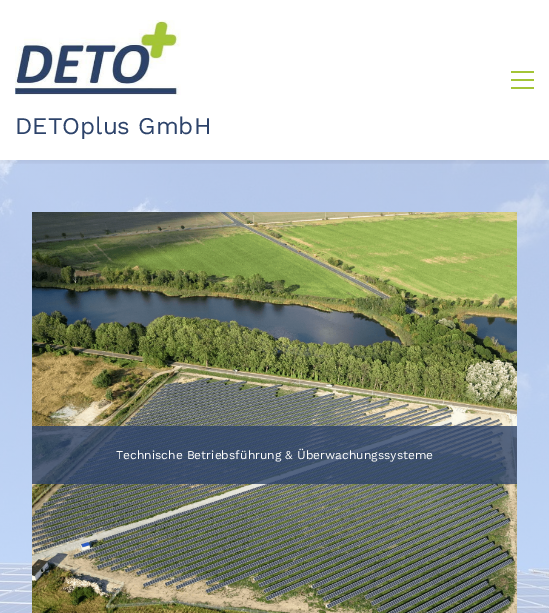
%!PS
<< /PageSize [549 613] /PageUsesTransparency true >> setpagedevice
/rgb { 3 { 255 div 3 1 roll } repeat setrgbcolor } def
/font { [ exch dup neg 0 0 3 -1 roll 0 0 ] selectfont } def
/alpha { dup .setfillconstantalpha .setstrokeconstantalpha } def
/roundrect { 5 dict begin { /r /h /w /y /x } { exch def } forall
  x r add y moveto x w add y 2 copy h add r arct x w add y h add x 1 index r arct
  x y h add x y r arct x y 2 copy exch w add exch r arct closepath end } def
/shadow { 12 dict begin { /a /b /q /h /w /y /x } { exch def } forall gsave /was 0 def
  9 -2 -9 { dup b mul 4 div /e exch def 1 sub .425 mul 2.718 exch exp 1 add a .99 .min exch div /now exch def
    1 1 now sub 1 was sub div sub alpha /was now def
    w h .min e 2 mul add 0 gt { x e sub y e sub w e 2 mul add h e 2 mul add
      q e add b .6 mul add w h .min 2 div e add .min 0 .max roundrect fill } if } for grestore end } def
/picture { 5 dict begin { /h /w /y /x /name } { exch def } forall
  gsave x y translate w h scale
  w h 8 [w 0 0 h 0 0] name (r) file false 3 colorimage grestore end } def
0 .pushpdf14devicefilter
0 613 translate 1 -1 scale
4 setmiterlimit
255 255 255 rgb
0 0 549 613 rectfill
(img/2.rgb) 0 160 549 453 picture
gsave
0 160 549 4 rectclip
0 0 0 rgb
0 3 549 160 0 2.5 0.05 shadow
grestore
[
  [511 71 23 2 164 197 54]
  [511 79 23 2 164 197 54]
  [511 87 23 2 164 197 54]
] { aload pop rgb rectfill } forall
(img/1.rgb) 15 20 166 75 picture
(img/3.rgb) 32 212 485 401 picture
0.8 alpha
45 67 106 rgb
32 426 485 58 rectfill
/WorkSans-Regular 24 font
1 alpha
15 134 moveto (DETOplus GmbH) show
/WorkSans-Regular 12 font
255 255 255 rgb
116 459 moveto (Technische Betriebsführung & Überwachungssysteme) show
.poppdf14devicefilter showpage
